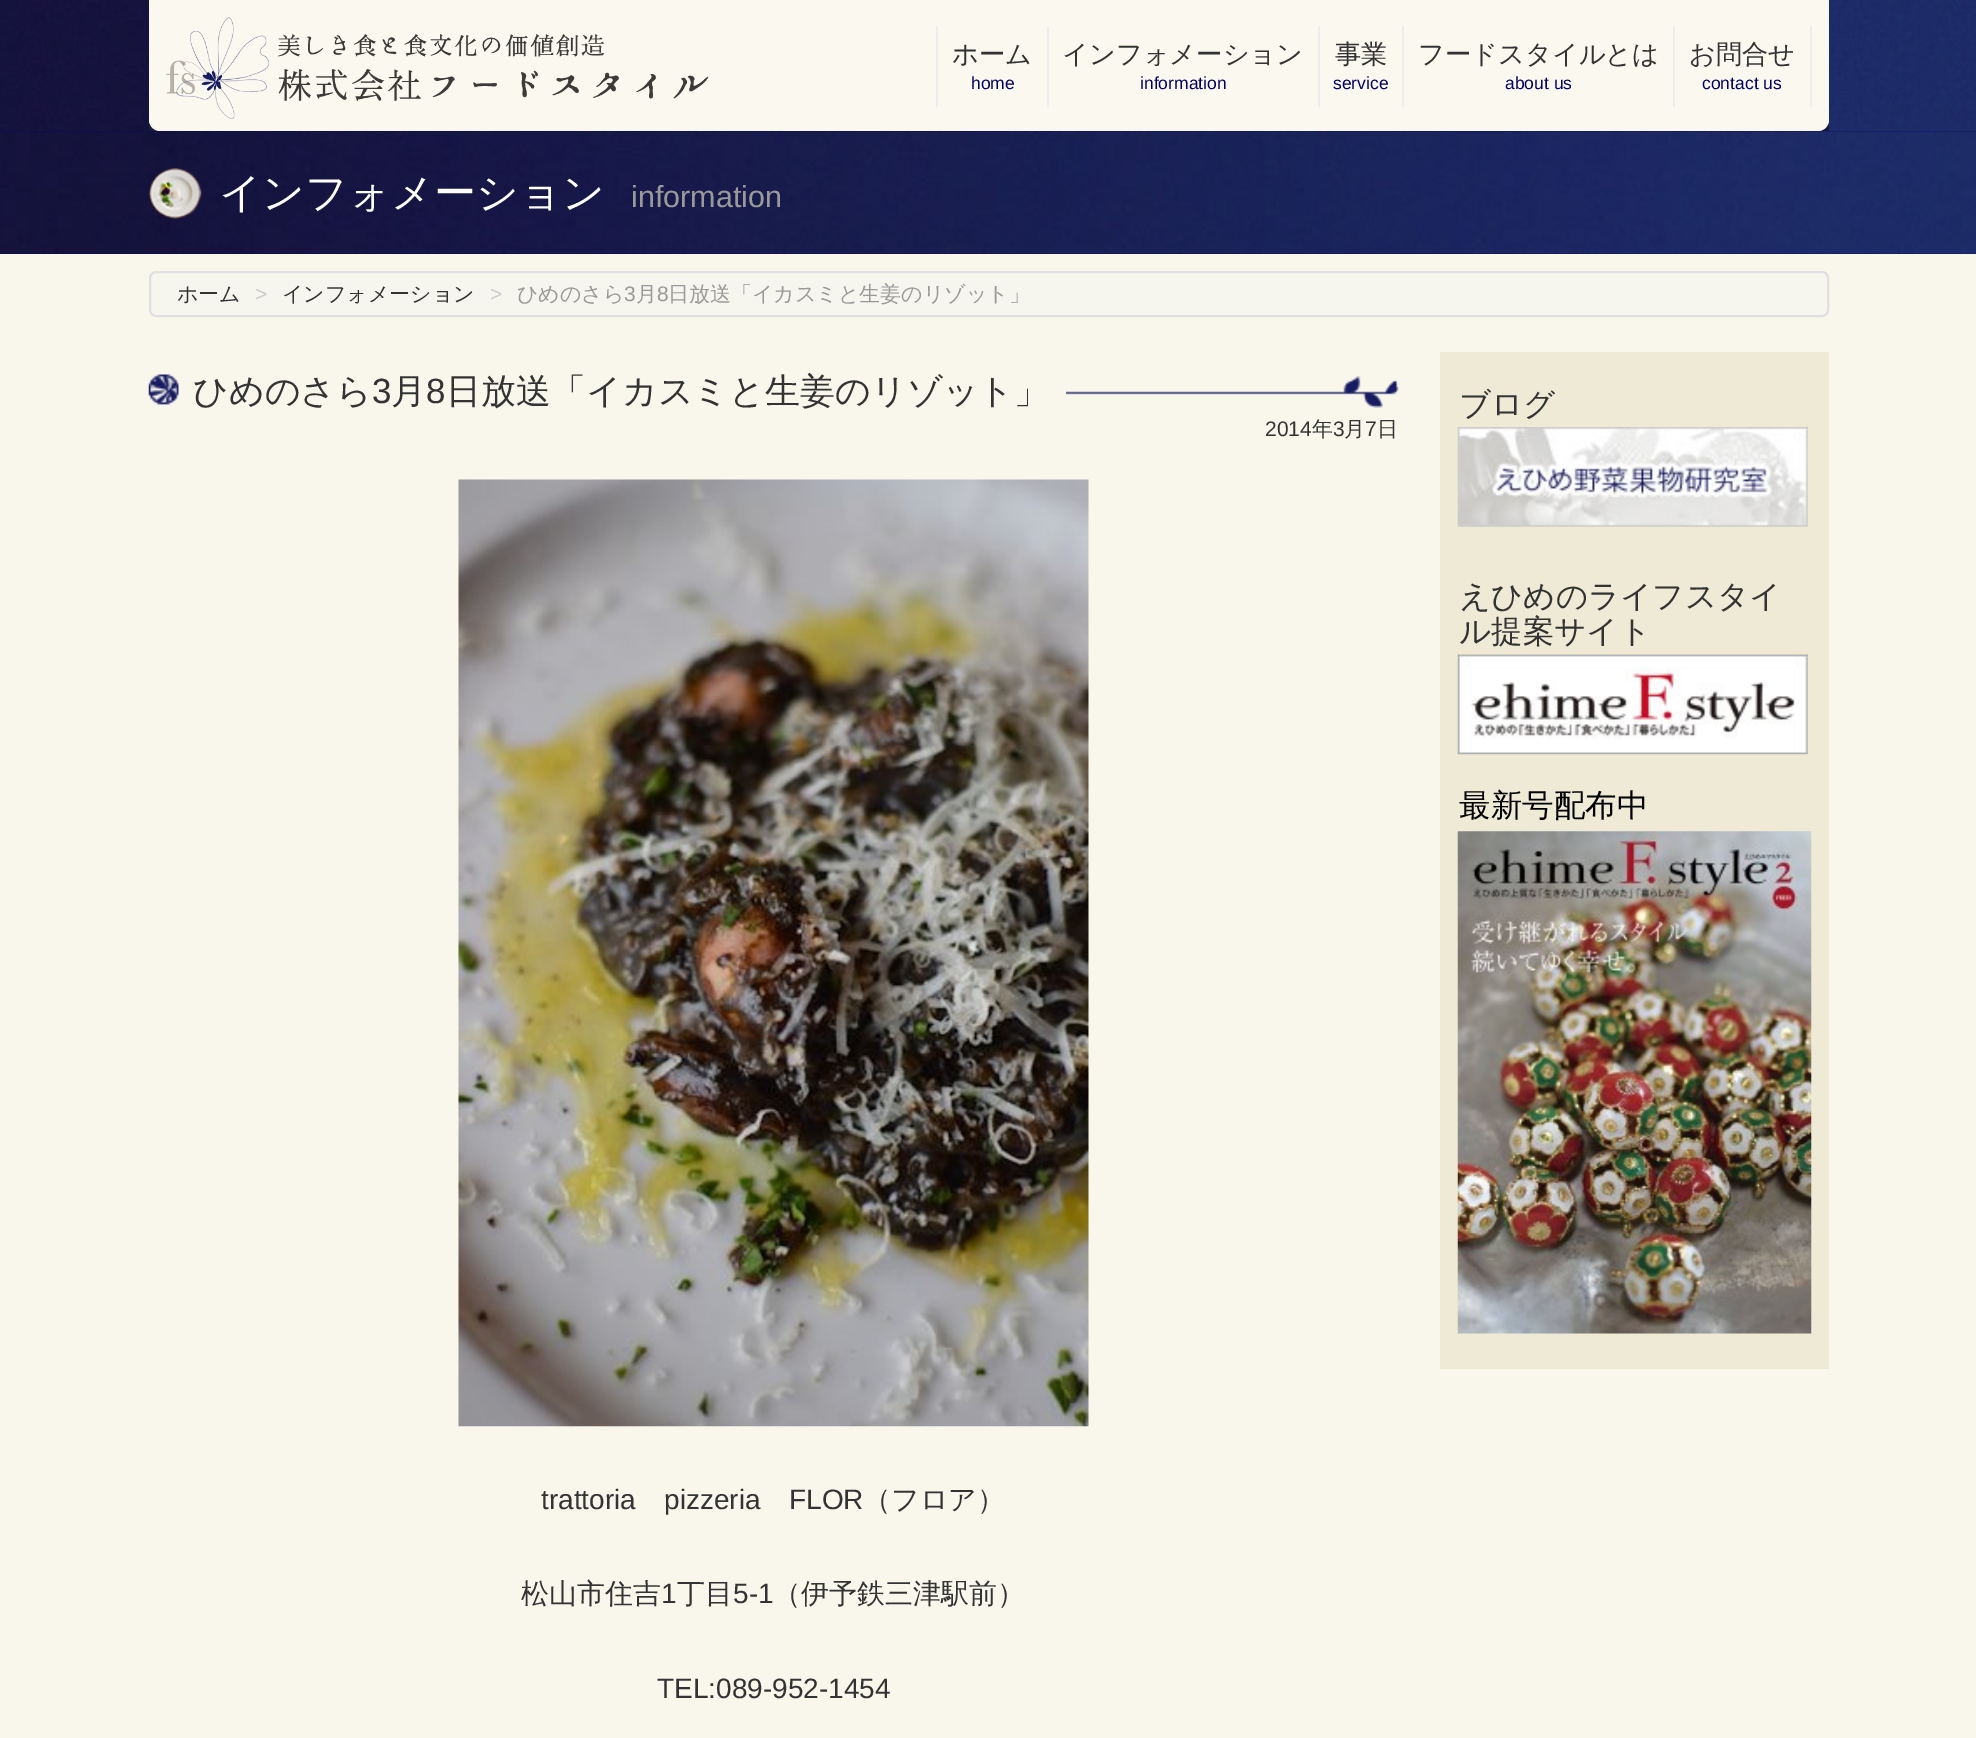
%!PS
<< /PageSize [1976 1738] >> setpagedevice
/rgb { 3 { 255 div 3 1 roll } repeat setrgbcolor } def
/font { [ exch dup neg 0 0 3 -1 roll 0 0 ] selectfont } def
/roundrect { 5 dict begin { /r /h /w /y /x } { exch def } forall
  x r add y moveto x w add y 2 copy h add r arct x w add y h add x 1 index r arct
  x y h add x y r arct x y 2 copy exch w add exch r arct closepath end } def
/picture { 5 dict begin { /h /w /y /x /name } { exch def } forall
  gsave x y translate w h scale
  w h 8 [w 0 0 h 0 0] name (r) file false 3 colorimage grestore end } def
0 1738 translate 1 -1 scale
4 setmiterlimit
249 247 236 rgb
0 0 1976 1738 rectfill
(img/1.rgb) 0 0 1976 132 picture
25 26 61 rgb
149 120 1680 11 rectfill
250 248 239 rgb
149 0 moveto 1829 0 lineto 1829 120 lineto 1829 126 1824 131 1818 131 curveto 160 131 lineto 154 131 149 126 149 120 curveto closepath fill
(img/2.rgb) 166 17 543 102 picture
[
  [936 26 2 81 237 237 237]
  [1047 26 2 81 237 237 237]
  [1318 26 2 81 237 237 237]
  [1402 26 2 81 237 237 237]
  [1810 26 2 81 237 237 237]
  [1673 26 2 81 237 237 237]
] { aload pop rgb rectfill } forall
(img/3.rgb) 0 131 1976 123 picture
(img/4.rgb) 148 168 54 51 picture
246 245 238 rgb
150 272 1678 44 6 roundrect gsave fill grestore
224 224 224 rgb
2 setlinewidth
stroke
(img/5.rgb) 1066 376 333 32 picture
(img/6.rgb) 148 374 31 31 picture
(img/7.rgb) 458 479 631 948 picture
239 234 214 rgb
1440 352 389 1017 rectfill
(img/8.rgb) 1457 427 351 100 picture
(img/9.rgb) 1457 654 351 101 picture
(img/10.rgb) 1457 831 355 503 picture
/WenQuanYiZenHei-Medium 26.25 font
51 51 51 rgb
952 63 moveto (ホーム) show
/LiberationSans-Regular 17.5 font
0 0 102 rgb
971 89 moveto (home) show
/WenQuanYiZenHei-Medium 26.25 font
51 51 51 rgb
1062 63 moveto (インフォメーション) show
/LiberationSans-Regular 17.5 font
0 0 102 rgb
1140 89 moveto (information) show
/WenQuanYiZenHei-Medium 26.25 font
51 51 51 rgb
1335 63 moveto (事業) show
/LiberationSans-Regular 17.5 font
0 0 102 rgb
1333 89 moveto (service) show
/WenQuanYiZenHei-Medium 26.25 font
51 51 51 rgb
1418 63 moveto (フードスタイルとは) show
/LiberationSans-Regular 17.5 font
0 0 102 rgb
1505 89 moveto (about us) show
/WenQuanYiZenHei-Medium 26.25 font
51 51 51 rgb
1689 63 moveto (お問合せ) show
/LiberationSans-Regular 17.5 font
0 0 102 rgb
1702 89 moveto (contact us) show
/WenQuanYiZenHei-Medium 42 font
255 255 255 rgb
219 207 moveto (インフォメーション) show
/LiberationSans-Regular 30.5 font
153 153 153 rgb
631 207 moveto (information) show
/WenQuanYiZenHei-Medium 21 font
51 51 51 rgb
177 301 moveto (ホーム) show
/LiberationSans-Regular 21 font
204 204 204 rgb
255 301 moveto (>) show
/WenQuanYiZenHei-Medium 21 font
51 51 51 rgb
282 301 moveto (インフォメーション) show
/LiberationSans-Regular 21 font
204 204 204 rgb
490 301 moveto (>) show
/WenQuanYiZenHei-Medium 21 font
153 153 153 rgb
517 301 moveto (ひめのさら) show
/LiberationSans-Regular 21 font
624 301 moveto (3) show
/WenQuanYiZenHei-Medium 21 font
636 301 moveto (月) show
/LiberationSans-Regular 21 font
657 301 moveto (8) show
/WenQuanYiZenHei-Medium 21 font
668 301 moveto (日放送「イカスミと生姜のリゾット」) show
/WenQuanYiZenHei-Medium 35 font
51 51 51 rgb
193 403 moveto (ひめのさら) show
/LiberationSans-Regular 35 font
372 403 moveto (3) show
/WenQuanYiZenHei-Medium 35 font
391 403 moveto (月) show
/LiberationSans-Regular 35 font
426 403 moveto (8) show
/WenQuanYiZenHei-Medium 35 font
446 403 moveto (日放送「イカスミと生姜のリゾット」) show
/LiberationSans-Regular 21 font
1265 436 moveto (2014) show
/WenQuanYiZenHei-Medium 21 font
1312 436 moveto (年) show
/LiberationSans-Regular 21 font
1333 436 moveto (3) show
/WenQuanYiZenHei-Medium 21 font
1344 436 moveto (月) show
/LiberationSans-Regular 21 font
1365 436 moveto (7) show
/WenQuanYiZenHei-Medium 21 font
1377 436 moveto (日) show
/LiberationSans-Regular 28 font
[
  [(trattoria) 541 1509]
  [(pizzeria) 664 1509]
  [(FLOR) 789 1509]
] { aload pop moveto show } forall
/WenQuanYiZenHei-Medium 28 font
863 1509 moveto (（フロア）) show
521 1603 moveto (松山市住吉) show
/LiberationSans-Regular 28 font
661 1603 moveto (1) show
/WenQuanYiZenHei-Medium 28 font
677 1603 moveto (丁目) show
/LiberationSans-Regular 28 font
733 1603 moveto (5-1) show
/WenQuanYiZenHei-Medium 28 font
773 1603 moveto (（伊予鉄三津駅前）) show
/LiberationSans-Regular 28 font
657 1698 moveto (TEL:089-952-1454) show
/WenQuanYiZenHei-Medium 31.5 font
[
  [(ブログ) 1459 415]
  [(えひめのライフスタイ) 1459 607]
  [(ル提案サイト) 1459 642]
] { aload pop moveto show } forall
0 0 0 rgb
1459 816 moveto (最新号配布中) show
showpage
